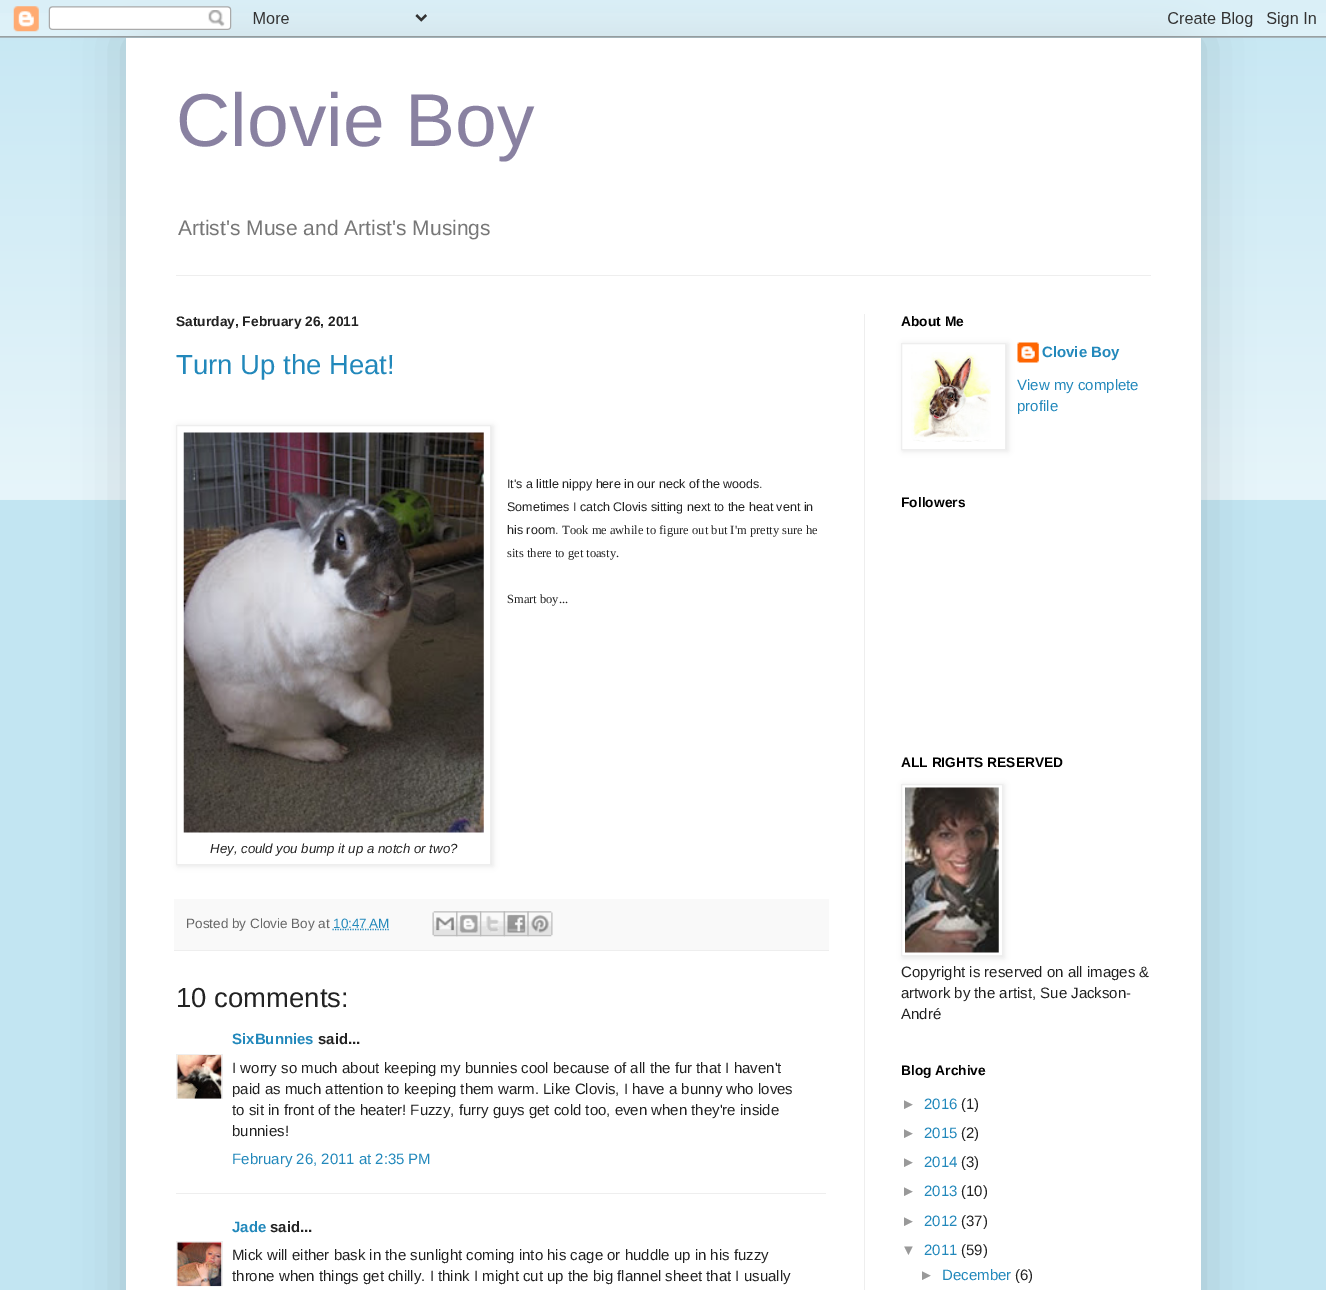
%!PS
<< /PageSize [1326 1290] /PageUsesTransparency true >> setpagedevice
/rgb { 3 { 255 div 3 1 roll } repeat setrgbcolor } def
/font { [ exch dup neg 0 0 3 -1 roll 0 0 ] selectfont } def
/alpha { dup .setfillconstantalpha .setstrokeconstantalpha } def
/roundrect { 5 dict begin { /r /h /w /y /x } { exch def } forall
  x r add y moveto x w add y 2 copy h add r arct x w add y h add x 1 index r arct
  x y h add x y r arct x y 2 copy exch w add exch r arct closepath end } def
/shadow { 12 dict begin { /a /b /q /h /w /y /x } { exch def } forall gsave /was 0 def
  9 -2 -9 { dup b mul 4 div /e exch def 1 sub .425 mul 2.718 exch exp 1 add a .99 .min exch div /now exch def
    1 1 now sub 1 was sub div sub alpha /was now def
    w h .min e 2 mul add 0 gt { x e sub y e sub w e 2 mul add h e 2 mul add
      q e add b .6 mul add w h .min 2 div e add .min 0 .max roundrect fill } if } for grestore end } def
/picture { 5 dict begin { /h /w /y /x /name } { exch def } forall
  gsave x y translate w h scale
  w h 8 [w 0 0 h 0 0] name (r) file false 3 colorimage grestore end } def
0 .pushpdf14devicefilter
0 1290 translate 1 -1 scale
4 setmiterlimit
194 229 242 rgb
0 0 1326 1290 rectfill
(img/2.rgb) 0 13 1326 487 picture
0 0 0 rgb
126 38 1075 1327 0 25 0.15 shadow
(img/1.rgb) 0 0 1326 38 picture
[
  [126 38 1075 1252 255 255 255]
  [176 275 975 1 238 238 238]
  [864 314 1 976 238 238 238]
] { aload pop rgb rectfill } forall
0 0 0 rgb
178 426 315 440 0 3 0.1 shadow
255 255 255 rgb
176.5 425.5 moveto 490.5 425.5 lineto 490.5 864.5 lineto 176.5 864.5 lineto closepath gsave fill grestore
238 238 238 rgb
stroke
(img/3.rgb) 183 432 301 401 picture
249 249 249 rgb
174 899 655 51 rectfill
238 238 238 rgb
174 950 655 1 rectfill
34 136 187 rgb
1.2 setlinewidth
[1.25 1.25] 0 setdash
332.5 929.5 moveto 389.5 929.5 lineto stroke
(img/4.rgb) 432 911 26 26 picture
(img/5.rgb) 456 911 26 26 picture
(img/6.rgb) 480 911 25 26 picture
(img/7.rgb) 503 911 26 26 picture
(img/8.rgb) 527 911 26 26 picture
gsave
176 1054 47 45 rectclip
238 238 238 rgb
1 setlinewidth
[] 0 setdash
176.5 1054.5 46 45 rectstroke
grestore
(img/9.rgb) 177 1055 45 44 picture
238 238 238 rgb
176 1193 650 1 rectfill
gsave
176 1241 47 45 rectclip
1 setlinewidth
[] 0 setdash
176.5 1241.5 46 46 rectstroke
grestore
(img/10.rgb) 177 1242 45 45 picture
(img/12.rgb) 1017 342 22 21 picture
0 0 0 rgb
903 344 105 107 0 3 0.1 shadow
255 255 255 rgb
901.5 343.5 moveto 1005.5 343.5 lineto 1005.5 449.5 lineto 901.5 449.5 lineto closepath gsave fill grestore
238 238 238 rgb
1 setlinewidth
[] 0 setdash
stroke
(img/11.rgb) 911 352 80 90 picture
0 0 0 rgb
903 785 101 173 0 3 0.1 shadow
255 255 255 rgb
901.5 784.5 moveto 1002.5 784.5 lineto 1002.5 955.5 lineto 901.5 955.5 lineto closepath gsave fill grestore
238 238 238 rgb
stroke
(img/13.rgb) 905 787 94 166 picture
/LiberationSans-Regular 75 font
137 129 161 rgb
176 146 moveto (Clovie Boy) show
/LiberationSans-Regular 21 font
119 119 119 rgb
178 235 moveto (Artist's Muse and Artist's Musings) show
/LiberationSans-Bold 13.75 font
34 34 34 rgb
176 326 moveto (Saturday, February 26, 2011) show
/LiberationSans-Regular 27.5 font
34 136 187 rgb
176 374 moveto (Turn Up the Heat!) show
/LiberationSans-Regular 12.5 font
34 34 34 rgb
[
  [(It's a little nippy here in our neck of the woods.) 507 488]
  [(Sometimes I catch Clovis sitting next to the heat vent in) 507 511]
  [(his room.) 507 534]
] { aload pop moveto show } forall
/LiberationSerif-Regular 12.5 font
[
  [(Took me awhile to figure out but I'm pretty sure he) 562 534]
  [(sits there to get toasty.) 507 557]
  [(Smart boy...) 507 603]
] { aload pop moveto show } forall
/LiberationSans-Italic 13.25 font
210 853 moveto (Hey, could you bump it up a notch or two?) show
/LiberationSans-Regular 13.5 font
102 102 102 rgb
186 928 moveto (Posted by Clovie Boy at) show
34 136 187 rgb
333 928 moveto (10:47 AM) show
/LiberationSans-Regular 27.5 font
34 34 34 rgb
176 1007 moveto (10 comments:) show
/LiberationSans-Bold 15 font
34 136 187 rgb
232 1044 moveto (SixBunnies) show
34 34 34 rgb
318 1044 moveto (said...) show
/LiberationSans-Regular 15 font
[
  [(I worry so much about keeping my bunnies cool because of all the fur that I haven't) 232 1073]
  [(paid as much attention to keeping them warm. Like Clovis, I have a bunny who loves) 232 1094]
  [(to sit in front of the heater! Fuzzy, furry guys get cold too, even when they're inside) 232 1115]
  [(bunnies!) 232 1136]
] { aload pop moveto show } forall
34 136 187 rgb
232 1164 moveto (February 26, 2011 at 2:35 PM) show
/LiberationSans-Bold 15 font
232 1232 moveto (Jade) show
34 34 34 rgb
270 1232 moveto (said...) show
/LiberationSans-Regular 15 font
232 1260 moveto (Mick will either bask in the sunlight coming into his cage or huddle up in his fuzzy) show
232 1281 moveto (throne when things get chilly. I think I might cut up the big flannel sheet that I usually) show
/LiberationSans-Bold 13.75 font
0 0 0 rgb
901 326 moveto (About Me) show
/LiberationSans-Bold 15 font
34 136 187 rgb
1042 357 moveto (Clovie Boy) show
/LiberationSans-Regular 15 font
1017 390 moveto (View my complete) show
1017 411 moveto (profile) show
/LiberationSans-Bold 13.75 font
0 0 0 rgb
901 507 moveto (Followers) show
901 767 moveto (ALL RIGHTS RESERVED) show
/LiberationSans-Regular 15 font
34 34 34 rgb
[
  [(Copyright is reserved on all images &) 901 977]
  [(artwork by the artist, Sue Jackson-) 901 998]
  [(André) 901 1019]
] { aload pop moveto show } forall
/LiberationSans-Bold 13.75 font
0 0 0 rgb
901 1075 moveto (Blog Archive) show
/LiberationSans-Regular 15 font
153 153 153 rgb
901 1109 moveto (►) show
34 136 187 rgb
924 1109 moveto (2016) show
34 34 34 rgb
961 1109 moveto (\(1\)) show
153 153 153 rgb
901 1138 moveto (►) show
34 136 187 rgb
924 1138 moveto (2015) show
34 34 34 rgb
961 1138 moveto (\(2\)) show
153 153 153 rgb
901 1167 moveto (►) show
34 136 187 rgb
924 1167 moveto (2014) show
34 34 34 rgb
961 1167 moveto (\(3\)) show
153 153 153 rgb
901 1196 moveto (►) show
34 136 187 rgb
924 1196 moveto (2013) show
34 34 34 rgb
961 1196 moveto (\(10\)) show
153 153 153 rgb
901 1226 moveto (►) show
34 136 187 rgb
924 1226 moveto (2012) show
34 34 34 rgb
961 1226 moveto (\(37\)) show
153 153 153 rgb
901 1255 moveto (▼) show
34 136 187 rgb
924 1255 moveto (2011) show
34 34 34 rgb
961 1255 moveto (\(59\)) show
153 153 153 rgb
919 1280 moveto (►) show
34 136 187 rgb
942 1280 moveto (December) show
34 34 34 rgb
1015 1280 moveto (\(6\)) show
.poppdf14devicefilter showpage
